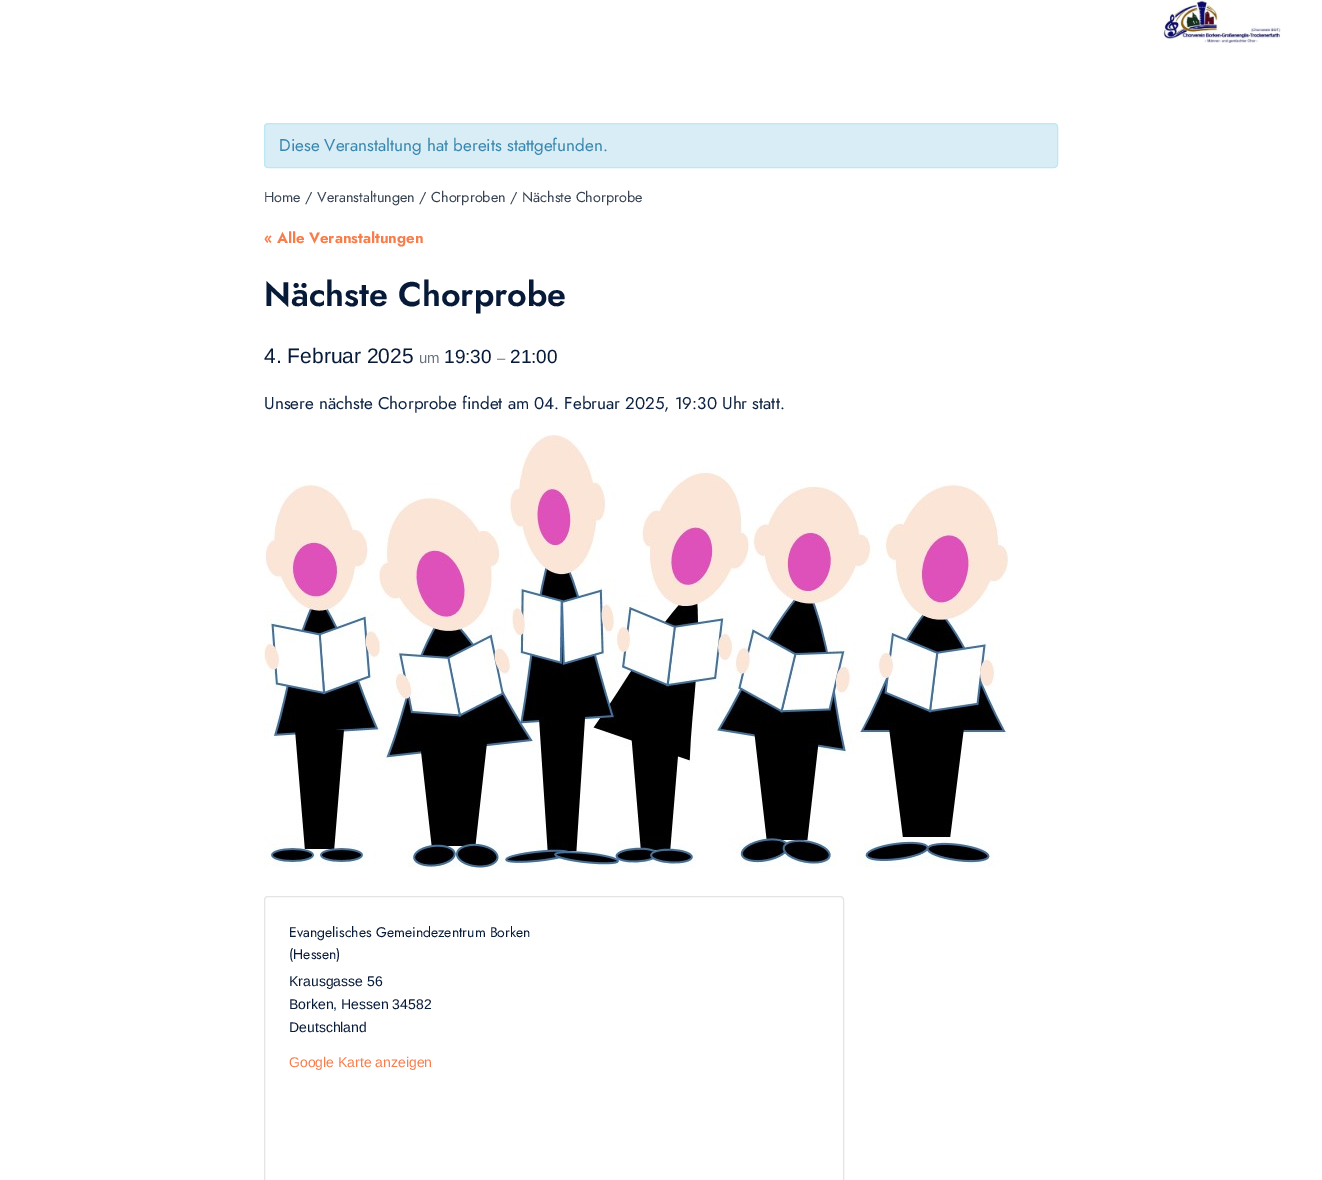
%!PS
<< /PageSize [1322 1180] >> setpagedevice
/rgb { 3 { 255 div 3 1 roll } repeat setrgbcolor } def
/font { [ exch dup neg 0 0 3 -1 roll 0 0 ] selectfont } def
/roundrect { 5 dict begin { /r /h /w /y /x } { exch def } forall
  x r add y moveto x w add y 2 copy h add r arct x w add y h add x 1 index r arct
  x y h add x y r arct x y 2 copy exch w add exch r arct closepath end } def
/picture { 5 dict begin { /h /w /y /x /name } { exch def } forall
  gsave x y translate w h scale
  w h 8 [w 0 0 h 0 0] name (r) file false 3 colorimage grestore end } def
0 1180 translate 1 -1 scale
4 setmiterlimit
255 255 255 rgb
0 0 1322 1180 rectfill
(img/1.rgb) 1162 0 119 43 picture
217 237 247 rgb
264.5 123.5 793 44 3.5 roundrect gsave fill grestore
188 232 241 rgb
stroke
(img/2.rgb) 264 435 744 433 picture
228 228 228 rgb
264.5 896.5 579 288 3.5 roundrect stroke
/Jost-Regular 17 font
58 135 173 rgb
279 151 moveto (Diese Veranstaltung hat bereits stattgefunden.) show
/Jost-Regular 14.45 font
55 67 82 rgb
264 202 moveto (Home / Veranstaltungen / Chorproben / Nächste Chorprobe) show
/Jost-Bold 15 font
246 125 76 rgb
264 243 moveto (« Alle Veranstaltungen) show
/Jost-SemiBold 34 font
7 27 56 rgb
264 306 moveto (Nächste Chorprobe) show
/LiberationSans-Regular 21 font
264 363 moveto (4. Februar 2025) show
/LiberationSans-Regular 15 font
105 115 128 rgb
419 363 moveto (um) show
/LiberationSans-Regular 19 font
7 27 56 rgb
444 363 moveto (19:30) show
/LiberationSans-Regular 15 font
105 115 128 rgb
497 363 moveto (–) show
/LiberationSans-Regular 19 font
7 27 56 rgb
510 363 moveto (21:00) show
/Jost-Regular 17 font
14 35 65 rgb
264 409 moveto (Unsere nächste Chorprobe findet am 04. Februar 2025, 19:30 Uhr statt.) show
/Jost-Regular 14 font
7 27 56 rgb
289 937 moveto (Evangelisches Gemeindezentrum Borken) show
289 959 moveto (\(Hessen\)) show
/LiberationSans-Regular 14 font
[
  [(Krausgasse 56) 289 986]
  [(Borken, Hessen 34582) 289 1009]
  [(Deutschland) 289 1032]
] { aload pop moveto show } forall
246 125 76 rgb
289 1067 moveto (Google Karte anzeigen) show
showpage
